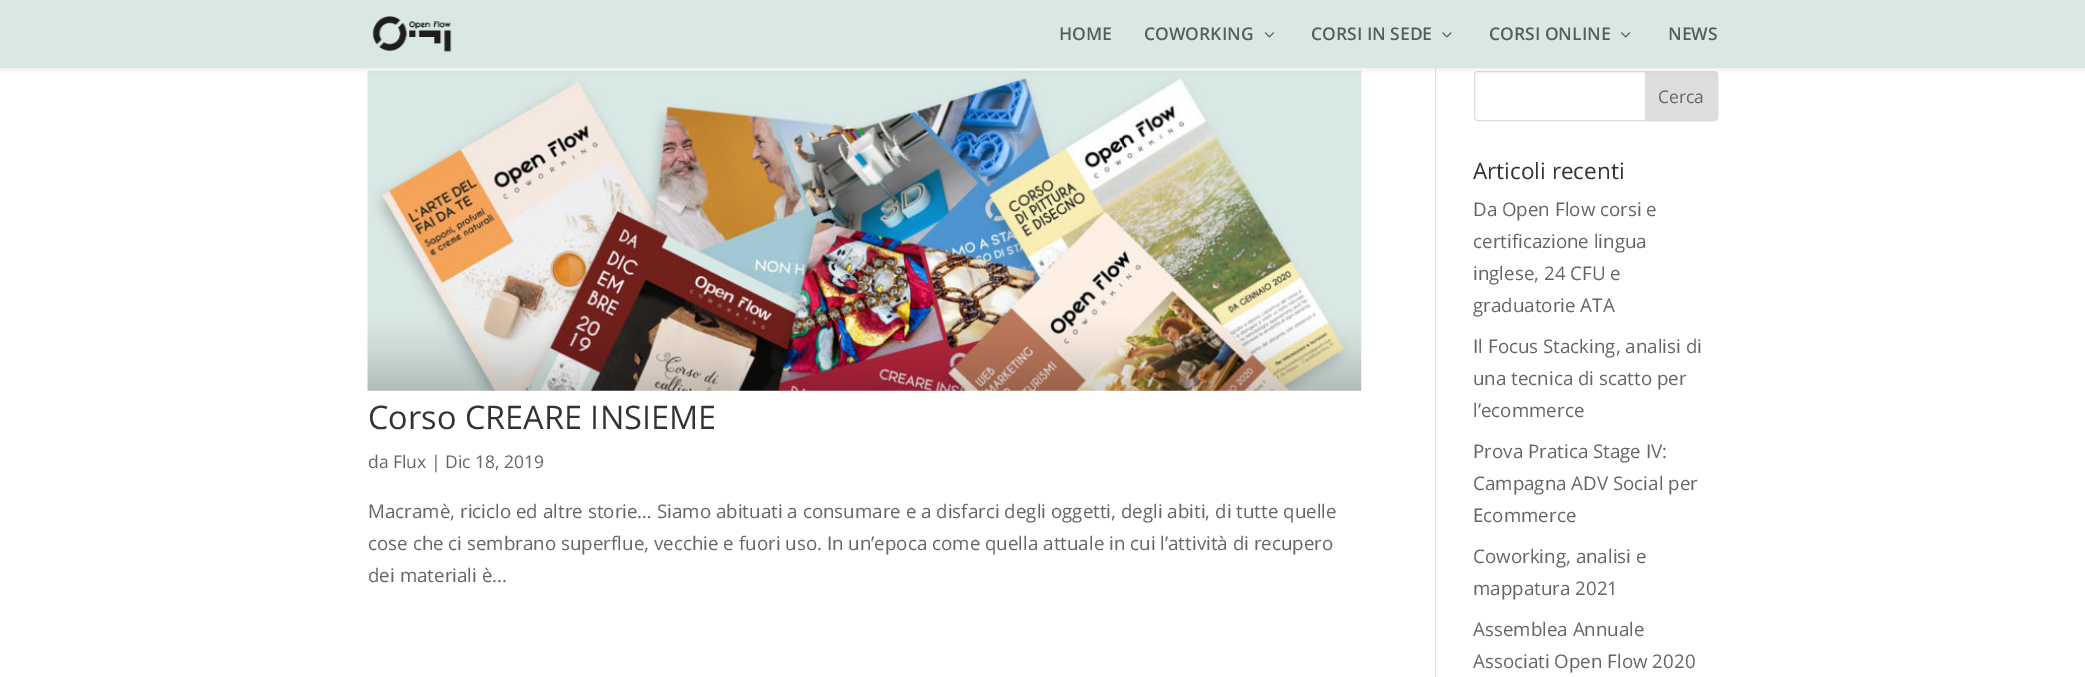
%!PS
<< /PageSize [2085 677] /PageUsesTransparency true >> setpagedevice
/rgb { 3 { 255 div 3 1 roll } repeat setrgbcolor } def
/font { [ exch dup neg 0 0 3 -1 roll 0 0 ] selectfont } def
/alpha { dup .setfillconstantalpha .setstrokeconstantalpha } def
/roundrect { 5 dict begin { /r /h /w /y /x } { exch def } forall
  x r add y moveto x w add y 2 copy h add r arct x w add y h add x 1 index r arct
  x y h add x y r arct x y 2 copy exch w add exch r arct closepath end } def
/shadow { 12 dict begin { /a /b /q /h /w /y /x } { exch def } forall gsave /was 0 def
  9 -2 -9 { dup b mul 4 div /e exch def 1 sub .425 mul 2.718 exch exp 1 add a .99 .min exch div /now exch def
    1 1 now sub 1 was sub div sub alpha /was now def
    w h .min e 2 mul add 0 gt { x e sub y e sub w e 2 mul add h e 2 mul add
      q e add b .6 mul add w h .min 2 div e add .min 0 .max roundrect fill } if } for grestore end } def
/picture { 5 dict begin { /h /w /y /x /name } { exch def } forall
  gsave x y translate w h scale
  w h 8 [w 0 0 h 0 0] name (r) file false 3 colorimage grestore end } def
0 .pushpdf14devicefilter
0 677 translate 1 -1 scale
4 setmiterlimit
255 255 255 rgb
0 0 2085 677 rectfill
226 226 226 rgb
1435 68 1 609 rectfill
(img/5.rgb) 367 70 995 321 picture
221 221 221 rgb
1474.5 71.5 243 49 3.5 roundrect stroke
1645.5 71.5 moveto 1714 71.5 lineto 1716 71.5 1717.5 73 1717.5 75 curveto 1717.5 117 lineto 1717.5 119 1716 120.5 1714 120.5 curveto 1645.5 120.5 lineto closepath gsave fill grestore
stroke
0 0 0 rgb
0 0 2085 68 0 4.5 0.1 shadow
217 232 229 rgb
0 0 2085 68 rectfill
(img/1.rgb) 372 16 80 36 picture
(img/2.rgb) 1264 32 10 6 picture
(img/3.rgb) 1442 32 10 6 picture
(img/4.rgb) 1621 32 10 6 picture
/OpenSans-SemiBold 17.5 font
87 93 92 rgb
[
  [(HOME) 1059 40]
  [(COWORKING) 1144 40]
  [(CORSI IN SEDE) 1311 40]
  [(CORSI ONLINE) 1489 40]
  [(NEWS) 1668 40]
] { aload pop moveto show } forall
/OpenSans-Regular 32.5 font
51 51 51 rgb
368 429 moveto (Corso CREARE INSIEME) show
/OpenSans-Regular 17.5 font
102 102 102 rgb
368 468 moveto (da Flux | Dic 18, 2019) show
/OpenSans-Regular 18.75 font
[
  [(Macramè, riciclo ed altre storie… Siamo abituati a consumare e a disfarci degli oggetti, degli abiti, di tutte quelle) 368 518]
  [(cose che ci sembrano superflue, vecchie e fuori uso. In un’epoca come quella attuale in cui l’attività di recupero) 368 550]
  [(dei materiali è...) 368 582]
] { aload pop moveto show } forall
/OpenSans-Regular 17.5 font
1658 103 moveto (Cerca) show
/OpenSans-Regular 22.5 font
51 51 51 rgb
1473 179 moveto (Articoli recenti) show
/OpenSans-Regular 18.75 font
102 102 102 rgb
[
  [(Da Open Flow corsi e) 1473 216]
  [(certificazione lingua) 1473 248]
  [(inglese, 24 CFU e) 1473 280]
  [(graduatorie ATA) 1473 312]
  [(Il Focus Stacking, analisi di) 1473 353]
  [(una tecnica di scatto per) 1473 385]
  [(l’ecommerce) 1473 417]
  [(Prova Pratica Stage IV:) 1473 458]
  [(Campagna ADV Social per) 1473 490]
  [(Ecommerce) 1473 522]
  [(Coworking, analisi e) 1473 563]
  [(mappatura 2021) 1473 595]
  [(Assemblea Annuale) 1473 636]
  [(Associati Open Flow 2020) 1473 668]
] { aload pop moveto show } forall
.poppdf14devicefilter showpage
